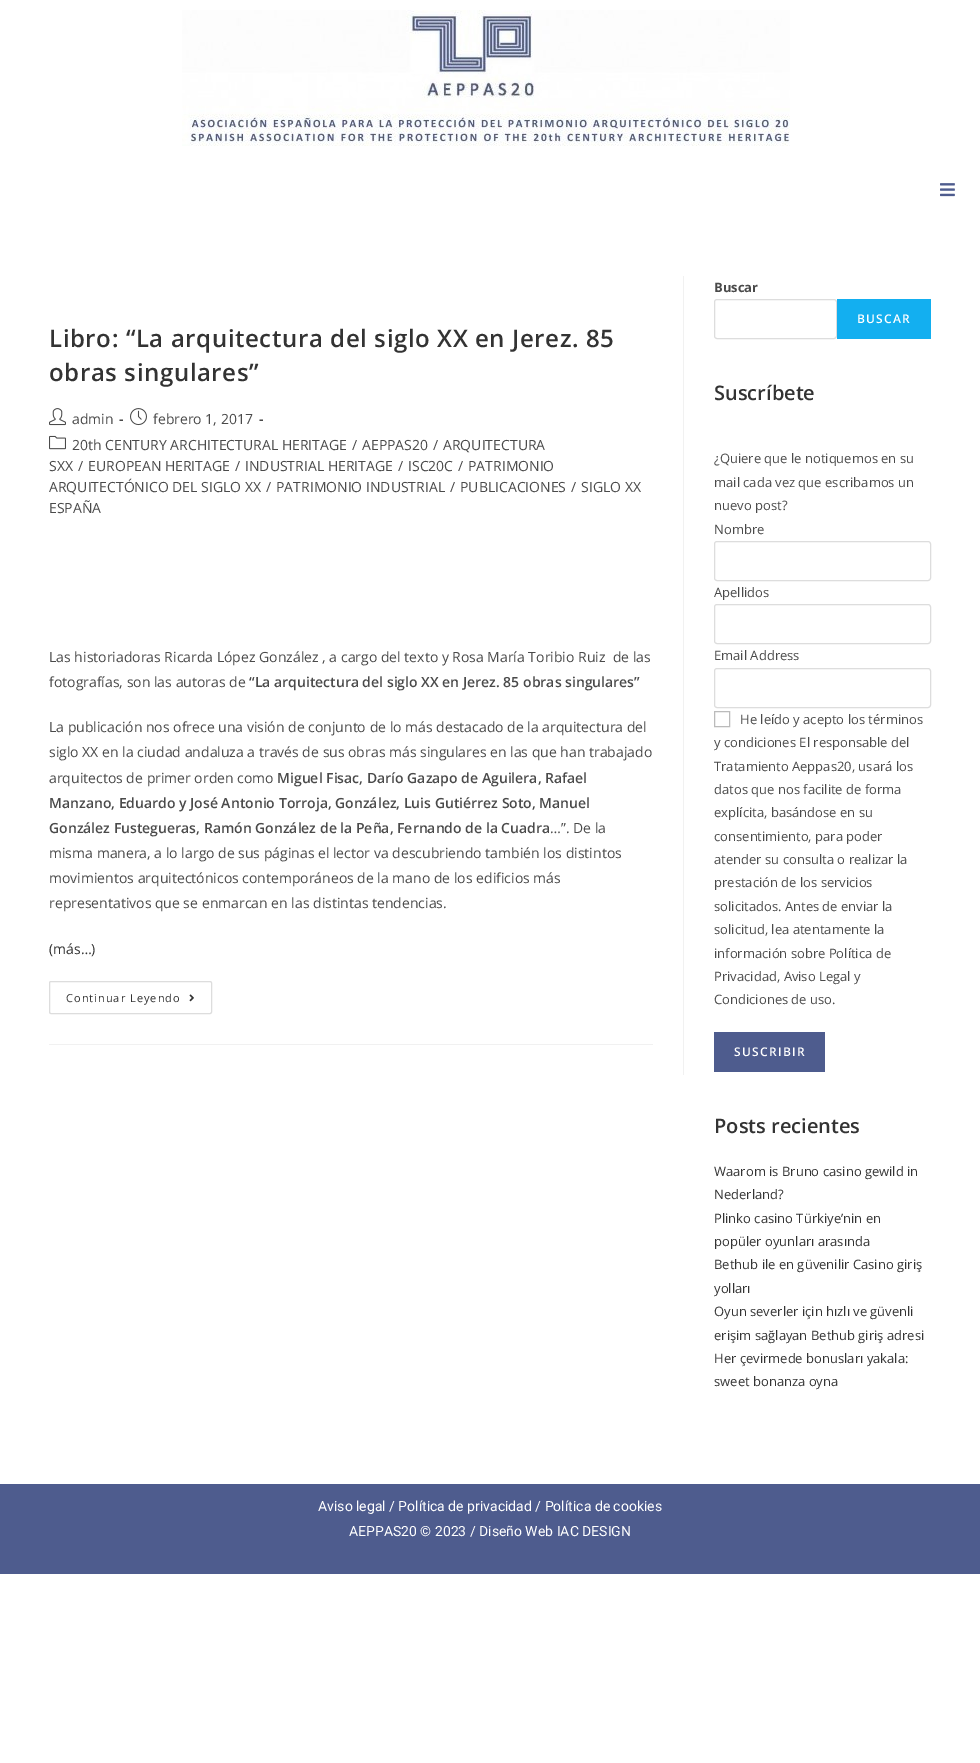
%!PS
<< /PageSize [980 1763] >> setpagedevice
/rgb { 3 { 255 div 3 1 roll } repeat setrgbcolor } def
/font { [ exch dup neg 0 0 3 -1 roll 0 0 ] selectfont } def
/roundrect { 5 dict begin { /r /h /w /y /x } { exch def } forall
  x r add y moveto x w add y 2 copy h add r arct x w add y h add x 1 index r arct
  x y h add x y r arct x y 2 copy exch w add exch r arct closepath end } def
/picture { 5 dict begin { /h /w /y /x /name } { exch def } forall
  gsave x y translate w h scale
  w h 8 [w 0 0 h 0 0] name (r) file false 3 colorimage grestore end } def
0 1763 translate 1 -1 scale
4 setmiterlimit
255 255 255 rgb
0 0 980 1763 rectfill
(img/1.rgb) 182 10 608 136 picture
(img/2.rgb) 940 183 15 14 picture
241 241 241 rgb
683 276 1 799 rectfill
49 1044 604 1 rectfill
(img/3.rgb) 49 408 17 18 picture
(img/4.rgb) 130 408 17 18 picture
(img/5.rgb) 49 435 17 15 picture
221 221 221 rgb
49.5 981.5 162 32 1.5 roundrect stroke
(img/6.rgb) 189 994 5 8 picture
714.5 299.5 122 39 2.5 roundrect stroke
19 175 240 rgb
837 299 94 40 rectfill
221 221 221 rgb
714.5 541.5 216 39 2.5 roundrect stroke
714.5 604.5 216 39 2.5 roundrect stroke
714.5 668.5 216 39 2.5 roundrect stroke
187 187 187 rgb
714.5 711.5 15 15 rectstroke
78 92 142 rgb
714 1032 111 40 rectfill
0 1484 980 90 rectfill
/OpenSans-SemiBold 24 font
51 51 51 rgb
49 347 moveto 0.6 0 (Libro: “La arquitectura del siglo XX en Jerez. 85) ashow
49 381 moveto 0.6 0 (obras singulares”) ashow
/OpenSans-Regular 14 font
74 74 74 rgb
72 424 moveto (admin) show
/OpenSans-Bold 14 font
119 424 moveto (-) show
/OpenSans-Regular 14 font
153 424 moveto (febrero 1, 2017) show
/OpenSans-Bold 14 font
259 424 moveto (-) show
/OpenSans-Regular 14 font
[
  [(20th CENTURY ARCHITECTURAL HERITAGE) 72 450]
  [(/) 352 450]
  [(AEPPAS20) 362 450]
  [(/) 433 450]
  [(ARQUITECTURA) 443 450]
  [(SXX) 49 471]
  [(/) 78 471]
  [(EUROPEAN HERITAGE) 88 471]
  [(/) 235 471]
  [(INDUSTRIAL HERITAGE) 245 471]
  [(/) 398 471]
  [(ISC20C) 408 471]
  [(/) 458 471]
  [(PATRIMONIO) 468 471]
  [(ARQUITECTÓNICO DEL SIGLO XX) 49 492]
  [(/) 266 492]
  [(PATRIMONIO INDUSTRIAL) 276 492]
  [(/) 450 492]
  [(PUBLICACIONES) 460 492]
  [(/) 571 492]
  [(SIGLO XX) 581 492]
  [(ESPAÑA) 49 513]
  [(Las historiadoras Ricarda López González , a cargo del texto y Rosa María Toribio Ruiz  de las) 49 662]
  [(fotografías, son las autoras de) 49 687]
] { aload pop moveto show } forall
/OpenSans-SemiBold 14 font
249 687 moveto (“La arquitectura del siglo XX en Jerez. 85 obras singulares”) show
/OpenSans-Regular 14 font
[
  [(La publicación nos ofrece una visión de conjunto de lo más destacado de la arquitectura del) 49 732]
  [(siglo XX en la ciudad andaluza a través de sus obras más singulares en las que han trabajado) 49 757]
  [(arquitectos de primer orden como) 49 783]
] { aload pop moveto show } forall
/OpenSans-SemiBold 14 font
[
  [(Miguel Fisac, Darío Gazapo de Aguilera, Rafael) 277 783]
  [(Manzano, Eduardo y José Antonio Torroja, González, Luis Gutiérrez Soto, Manuel) 49 808]
  [(González Fustegueras, Ramón González de la Peña, Fernando de la Cuadra) 49 833]
] { aload pop moveto show } forall
/OpenSans-Regular 14 font
[
  [(…”. De la) 550 833]
  [(misma manera, a lo largo de sus páginas el lector va descubriendo también los distintos) 49 858]
  [(movimientos arquitectónicos contemporáneos de la mano de los edificios más) 49 883]
  [(representativos que se enmarcan en las distintas tendencias.) 49 908]
] { aload pop moveto show } forall
51 51 51 rgb
49 954 moveto (\(más…\)) show
/OpenSans-Regular 11 font
66 1002 moveto 1 0 (Continuar Leyendo) ashow
/OpenSans-Bold 13 font
74 74 74 rgb
714 292 moveto (Buscar) show
/OpenSans-SemiBold 12 font
255 255 255 rgb
857 323 moveto 1.25 0 (BUSCAR) ashow
/OpenSans-SemiBold 20 font
51 51 51 rgb
714 400 moveto (Suscríbete) show
/OpenSans-Regular 13 font
74 74 74 rgb
[
  [(¿Quiere que le notiquemos en su) 714 463]
  [(mail cada vez que escribamos un) 714 487]
  [(nuevo post?) 714 510]
  [(Nombre) 714 534]
  [(Apellidos) 714 597]
  [(Email Address) 714 660]
  [(He leído y acepto los términos) 740 724]
  [(y condiciones El responsable del) 714 747]
  [(Tratamiento Aeppas20, usará los) 714 771]
  [(datos que nos facilite de forma) 714 794]
  [(explícita, basándose en su) 714 817]
  [(consentimiento, para poder) 714 841]
  [(atender su consulta o realizar la) 714 864]
  [(prestación de los servicios) 714 887]
  [(solicitados. Antes de enviar la) 714 911]
  [(solicitud, lea atentamente la) 714 934]
  [(información sobre Política de) 714 958]
  [(Privacidad, Aviso Legal y) 714 981]
  [(Condiciones de uso.) 714 1004]
] { aload pop moveto show } forall
/OpenSans-SemiBold 12 font
255 255 255 rgb
734 1056 moveto 1.25 0 (SUSCRIBIR) ashow
/OpenSans-SemiBold 20 font
51 51 51 rgb
714 1133 moveto (Posts recientes) show
/OpenSans-Regular 13 font
[
  [(Waarom is Bruno casino gewild in) 714 1176]
  [(Nederland?) 714 1199]
  [(Plinko casino Türkiye’nin en) 714 1223]
  [(popüler oyunları arasında) 714 1246]
  [(Bethub ile en güvenilir Casino giriş) 714 1269]
  [(yolları) 714 1293]
  [(Oyun severler için hızlı ve güvenli) 714 1316]
  [(erişim sağlayan Bethub giriş adresi) 714 1340]
  [(Her çevirmede bonusları yakala:) 714 1363]
  [(sweet bonanza oyna) 714 1386]
] { aload pop moveto show } forall
/Roboto-Regular 14 font
255 255 255 rgb
318 1511 moveto (Aviso legal / Política de privacidad / Política de cookies) show
349 1536 moveto (AEPPAS20 © 2023 / Diseño Web IAC DESIGN) show
showpage
